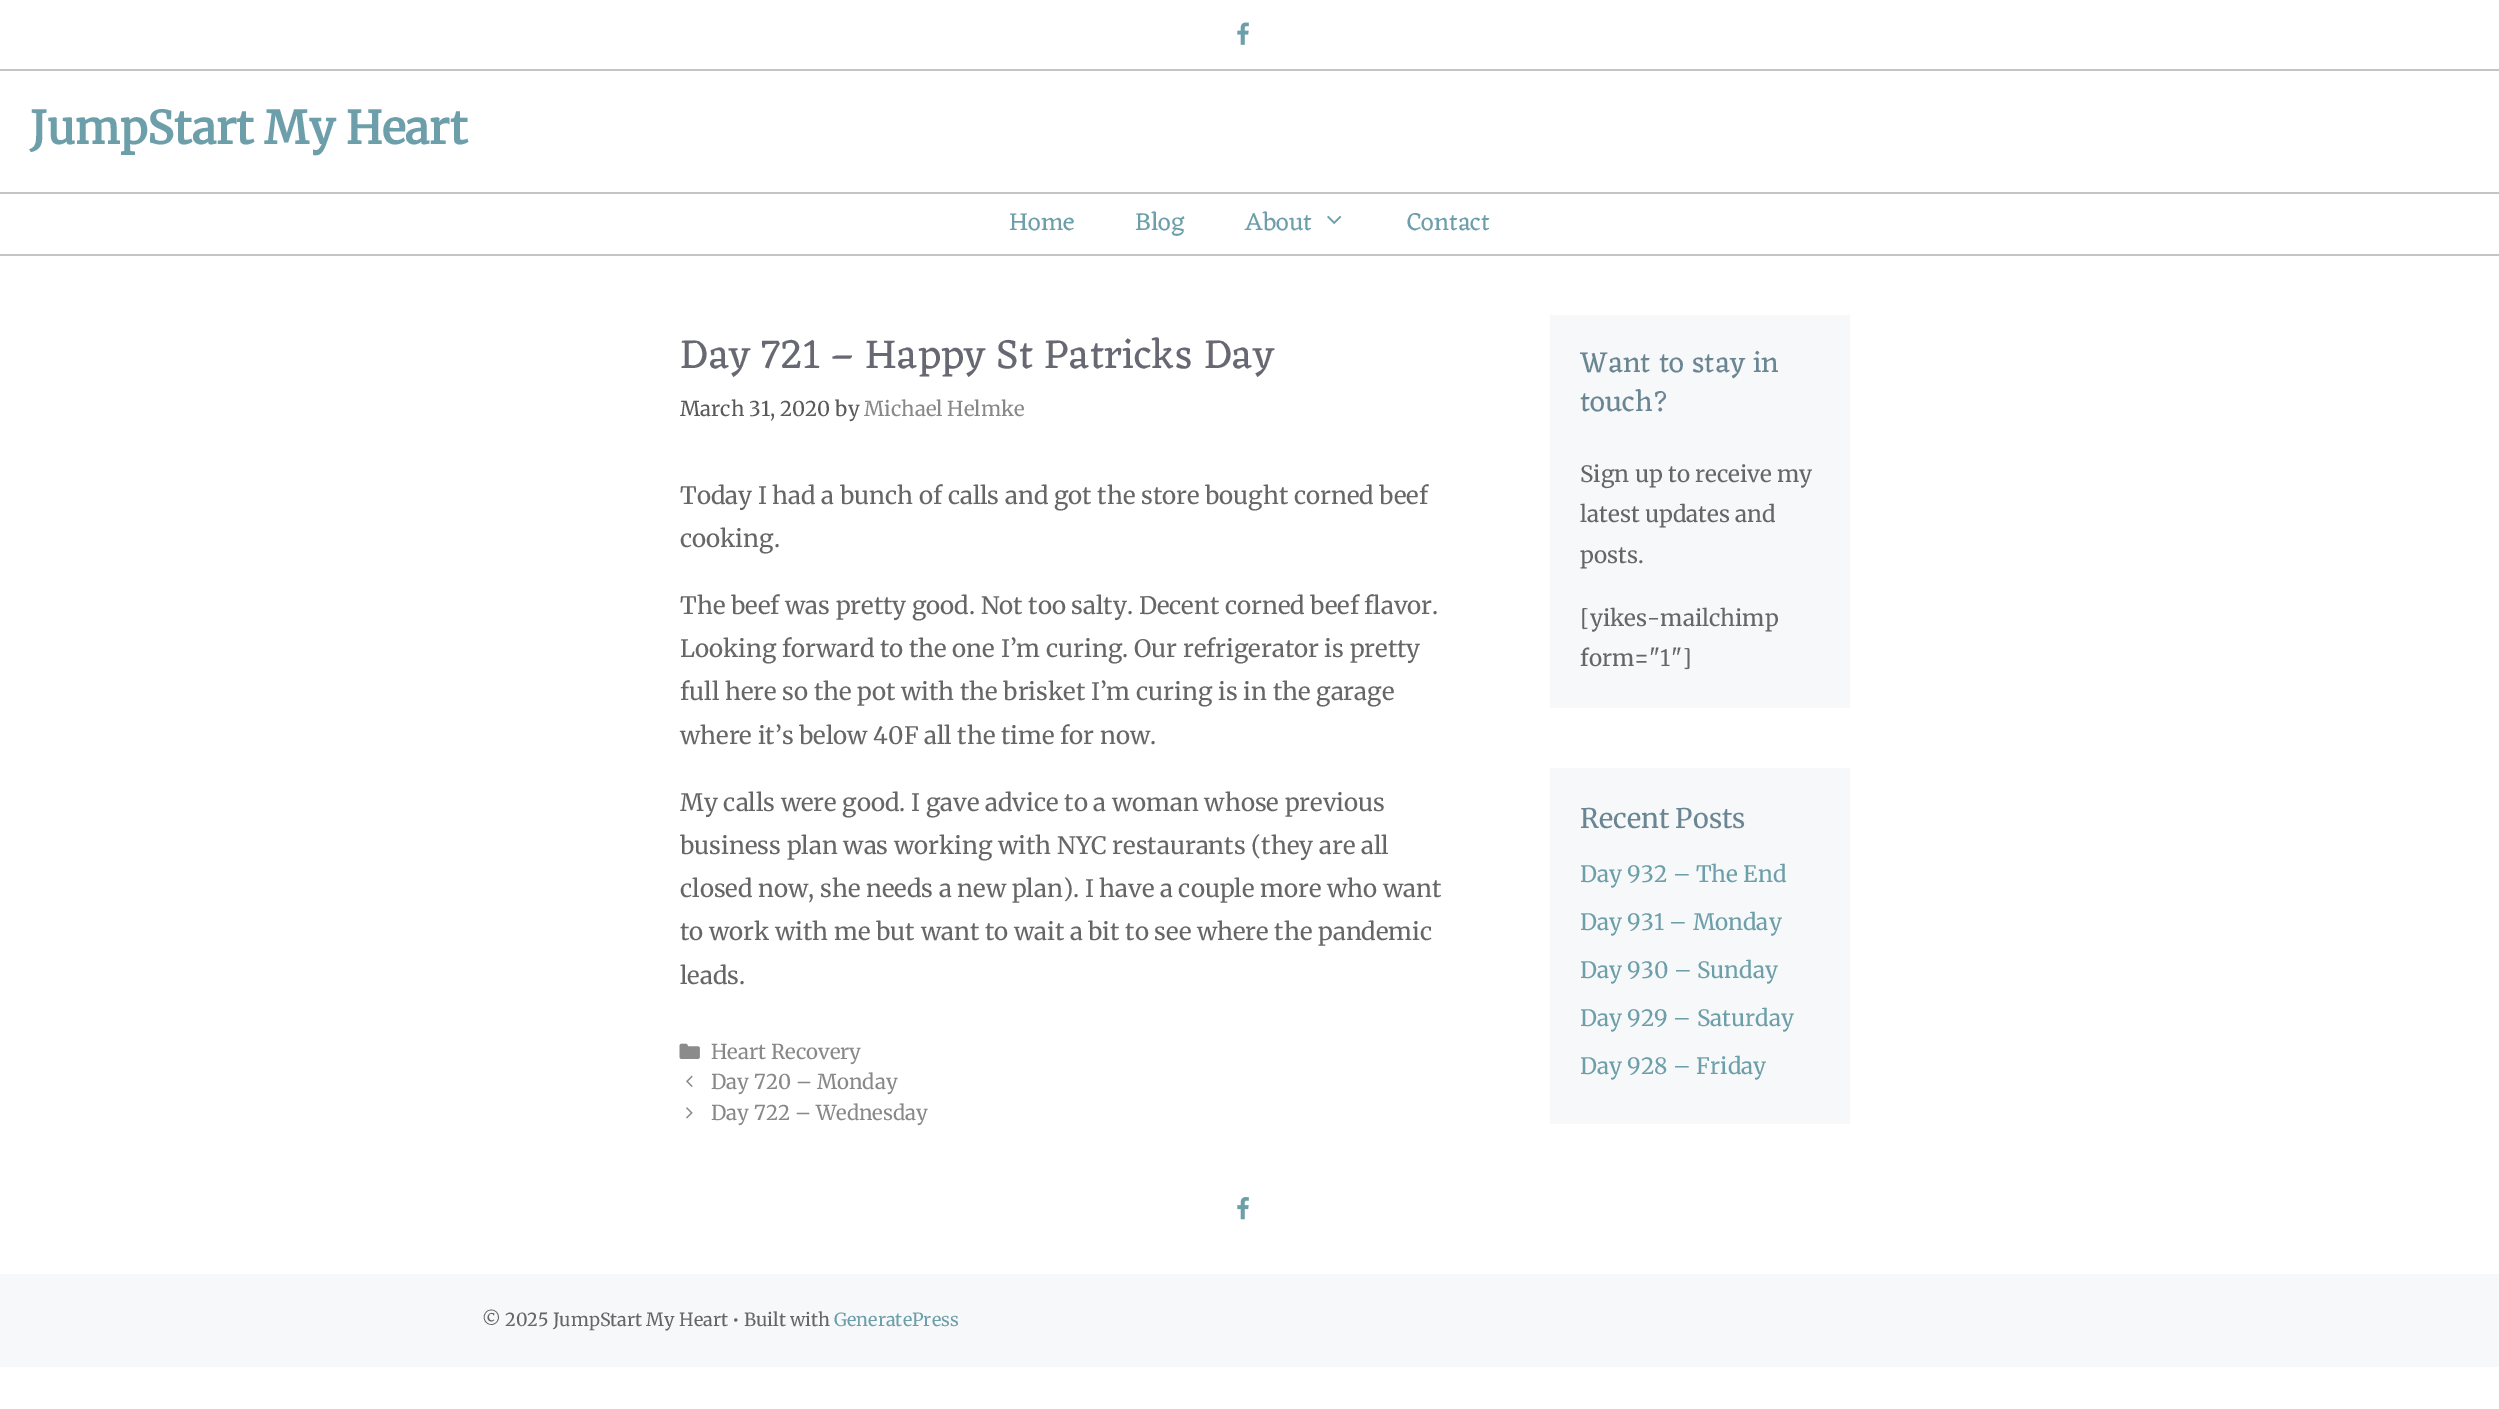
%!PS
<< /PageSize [2499 1409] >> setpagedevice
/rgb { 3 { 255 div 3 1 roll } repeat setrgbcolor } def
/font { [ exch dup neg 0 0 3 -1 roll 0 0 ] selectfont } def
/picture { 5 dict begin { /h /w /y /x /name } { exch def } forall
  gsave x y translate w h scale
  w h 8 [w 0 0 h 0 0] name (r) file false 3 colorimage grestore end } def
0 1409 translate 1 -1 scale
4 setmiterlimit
255 255 255 rgb
0 0 2499 1409 rectfill
196 196 196 rgb
0 69 2499 2 rectfill
(img/1.rgb) 1237 22 12 23 picture
0 192 2499 2 rectfill
0 254 2499 2 rectfill
(img/2.rgb) 1327 215 15 9 picture
(img/3.rgb) 679 1043 21 16 picture
(img/4.rgb) 686 1075 7 12 picture
(img/5.rgb) 686 1107 7 12 picture
247 248 249 rgb
1550 315 300 393 rectfill
1550 768 300 356 rectfill
(img/6.rgb) 1237 1197 12 23 picture
0 1274 2499 93 rectfill
/Merriweather-Bold 45 font
109 159 170 rgb
30 144 moveto (JumpStart My Heart) show
/Eczar-Regular 25.5 font
[
  [(Home) 1009 230]
  [(Blog) 1135 230]
  [(About) 1245 230]
  [(Contact) 1407 230]
] { aload pop moveto show } forall
/Eczar-Regular 42 font
103 104 114 rgb
680 368 moveto (Day 721 – Happy St Patricks Day) show
/Merriweather-Light 20.4 font
89 89 89 rgb
680 416 moveto (March 31, 2020 by) show
136 136 136 rgb
864 416 moveto (Michael Helmke) show
/Merriweather-Light 24 font
102 102 102 rgb
[
  [(Today I had a bunch of calls and got the store bought corned beef) 680 504]
  [(cooking.) 680 547]
  [(The beef was pretty good. Not too salty. Decent corned beef flavor.) 680 614]
  [(Looking forward to the one I’m curing. Our refrigerator is pretty) 680 657]
  [(full here so the pot with the brisket I’m curing is in the garage) 680 700]
  [(where it’s below 40F all the time for now.) 680 744]
  [(My calls were good. I gave advice to a woman whose previous) 680 811]
  [(business plan was working with NYC restaurants \(they are all) 680 854]
  [(closed now, she needs a new plan\). I have a couple more who want) 680 897]
  [(to work with me but want to wait a bit to see where the pandemic) 680 940]
  [(leads.) 680 984]
] { aload pop moveto show } forall
/Merriweather-Light 20.4 font
136 136 136 rgb
[
  [(Heart Recovery) 711 1059]
  [(Day 720 – Monday) 711 1089]
  [(Day 722 – Wednesday) 711 1120]
] { aload pop moveto show } forall
/Eczar-Regular 30 font
106 134 147 rgb
1580 372 moveto (Want to stay in) show
1580 411 moveto (touch?) show
/Merriweather-Light 22.5 font
102 102 102 rgb
[
  [(Sign up to receive my) 1580 482]
  [(latest updates and) 1580 522]
  [(posts.) 1580 563]
  [([yikes-mailchimp) 1580 626]
  [(form="1"]) 1580 666]
] { aload pop moveto show } forall
/Merriweather-Light 27 font
106 134 147 rgb
1580 828 moveto (Recent Posts) show
/Merriweather-Light 22.5 font
109 159 170 rgb
[
  [(Day 932 – The End) 1580 882]
  [(Day 931 – Monday) 1580 930]
  [(Day 930 – Sunday) 1580 978]
  [(Day 929 – Saturday) 1580 1026]
  [(Day 928 – Friday) 1580 1074]
] { aload pop moveto show } forall
/Merriweather-Light 18 font
102 102 102 rgb
482 1326 moveto (© 2025 JumpStart My Heart • Built with) show
109 159 170 rgb
834 1326 moveto (GeneratePress) show
showpage
